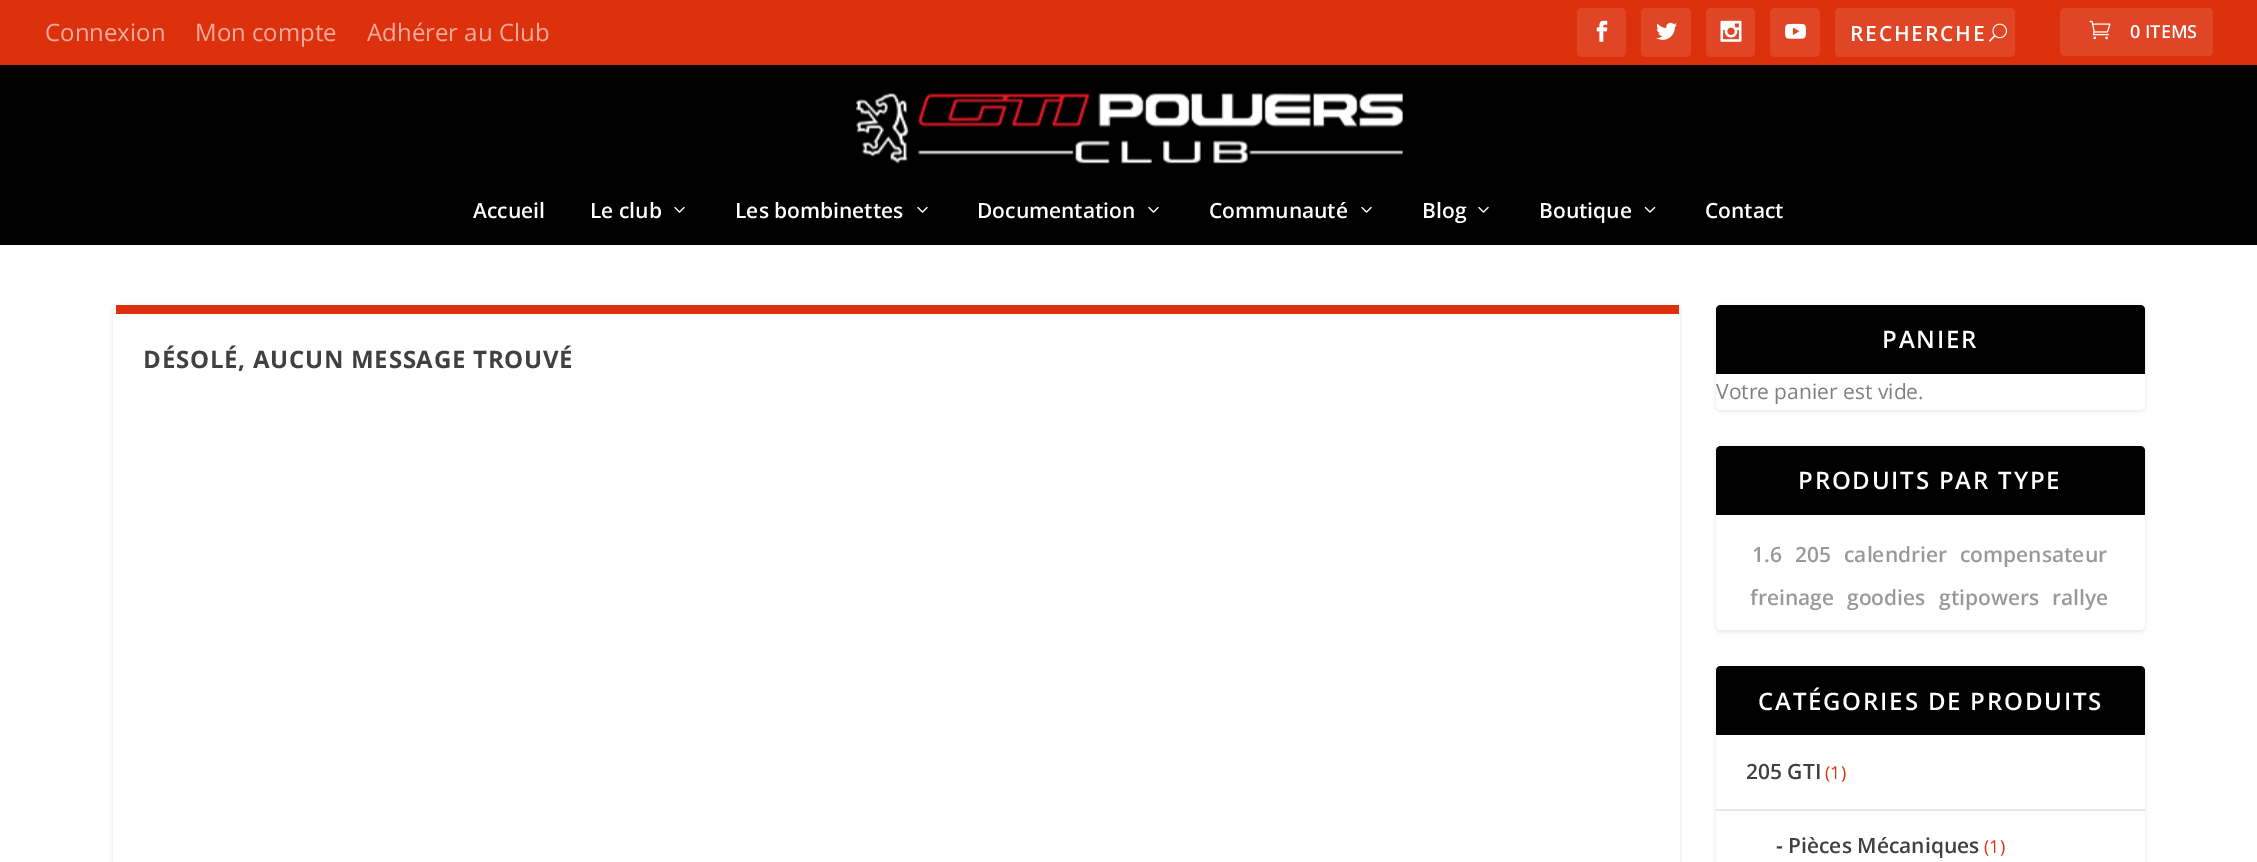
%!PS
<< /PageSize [2257 862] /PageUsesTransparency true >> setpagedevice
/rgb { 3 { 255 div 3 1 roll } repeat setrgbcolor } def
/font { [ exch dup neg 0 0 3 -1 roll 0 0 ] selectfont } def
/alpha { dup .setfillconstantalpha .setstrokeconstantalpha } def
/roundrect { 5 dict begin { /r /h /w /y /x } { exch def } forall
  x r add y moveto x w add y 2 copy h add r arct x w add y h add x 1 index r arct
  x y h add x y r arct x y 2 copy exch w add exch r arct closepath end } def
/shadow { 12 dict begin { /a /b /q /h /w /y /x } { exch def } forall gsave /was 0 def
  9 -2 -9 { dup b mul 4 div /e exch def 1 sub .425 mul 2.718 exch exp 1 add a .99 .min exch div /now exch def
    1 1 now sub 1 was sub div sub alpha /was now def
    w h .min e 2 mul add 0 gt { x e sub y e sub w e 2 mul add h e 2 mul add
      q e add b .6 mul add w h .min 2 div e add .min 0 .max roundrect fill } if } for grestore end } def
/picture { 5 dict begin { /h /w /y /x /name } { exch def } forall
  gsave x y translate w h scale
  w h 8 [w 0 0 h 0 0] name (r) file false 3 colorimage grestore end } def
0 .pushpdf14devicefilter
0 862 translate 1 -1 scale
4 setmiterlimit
255 255 255 rgb
0 0 2257 862 rectfill
221 48 13 rgb
0 0 2257 65 rectfill
224 69 37 rgb
1577 8 49 49 5 roundrect fill
(img/1.rgb) 1596 20 12 22 picture
1641 8 50 49 5 roundrect fill
(img/2.rgb) 1656 22 21 18 picture
1706 8 49 49 5 roundrect fill
(img/3.rgb) 1720 20 22 22 picture
1770 8 50 49 5 roundrect fill
(img/4.rgb) 1785 23 21 16 picture
1835 8 180 49 5 roundrect fill
(img/5.rgb) 1989 23 18 19 picture
2060 8 153 48 5 roundrect fill
(img/6.rgb) 2089 20 22 20 picture
0 0 0 rgb
0 65 2257 180 rectfill
(img/7.rgb) 856 93 547 71 picture
(img/8.rgb) 674 206 11 7 picture
(img/8.rgb) 917 206 11 7 picture
(img/8.rgb) 1148 206 11 7 picture
(img/8.rgb) 1361 206 11 7 picture
(img/8.rgb) 1478 206 11 7 picture
(img/9.rgb) 1644 206 12 7 picture
gsave
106 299 moveto 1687 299 lineto 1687 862 lineto 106 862 lineto closepath 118 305 moveto 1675 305 lineto 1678 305 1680 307 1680 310 curveto 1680 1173 lineto 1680 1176 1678 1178 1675 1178 curveto 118 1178 lineto 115 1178 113 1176 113 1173 curveto 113 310 lineto 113 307 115 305 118 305 curveto closepath eoclip newpath
113 306 1567 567 5 2 0.1 shadow
grestore
221 48 13 rgb
116 305 1563 9 rectfill
0 0 0 rgb
1716 306 429 105 5 2 0.1 shadow
255 255 255 rgb
1716 305 429 105 5 roundrect fill
0 0 0 rgb
1721 305 moveto 2140 305 lineto 2143 305 2145 307 2145 310 curveto 2145 374 lineto 1716 374 lineto 1716 310 lineto 1716 307 1718 305 1721 305 curveto closepath fill
1716 447 429 185 5 2 0.1 shadow
255 255 255 rgb
1716 446 429 184 5 roundrect fill
0 0 0 rgb
1721 446 moveto 2140 446 lineto 2143 446 2145 448 2145 451 curveto 2145 515 lineto 1716 515 lineto 1716 451 lineto 1716 448 1718 446 1721 446 curveto closepath fill
gsave
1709 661 moveto 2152 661 lineto 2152 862 lineto 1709 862 lineto closepath 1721 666 moveto 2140 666 lineto 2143 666 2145 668 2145 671 curveto 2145 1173 lineto 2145 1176 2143 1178 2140 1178 curveto 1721 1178 lineto 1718 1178 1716 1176 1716 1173 curveto 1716 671 lineto 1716 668 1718 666 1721 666 curveto closepath eoclip newpath
1716 668 429 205 5 2 0.1 shadow
grestore
1721 666 moveto 2140 666 lineto 2143 666 2145 668 2145 671 curveto 2145 735 lineto 1716 735 lineto 1716 671 lineto 1716 668 1718 666 1721 666 curveto closepath fill
230 230 230 rgb
1716 809 429 2 rectfill
/OpenSans-Regular 24 font
241 172 158 rgb
[
  [(Connexion) 45 41]
  [(Mon compte) 195 41]
  [(Adhérer au Club) 367 41]
] { aload pop moveto show } forall
/OpenSans-SemiBold 21 font
255 255 255 rgb
1850 41 moveto 1.8 0 (RECHERCHE) ashow
/OpenSans-SemiBold 18 font
2130 38 moveto (0 ITEMS) show
/OpenSans-SemiBold 21 font
[
  [(Accueil) 473 218]
  [(Le club) 590 218]
  [(Les bombinettes) 735 218]
  [(Documentation) 977 218]
  [(Communauté) 1209 218]
  [(Blog) 1422 218]
  [(Boutique) 1539 218]
  [(Contact) 1705 218]
] { aload pop moveto show } forall
/OpenSans-Bold 24 font
64 64 64 rgb
143 368 moveto 0.75 0 (DÉSOLÉ, AUCUN MESSAGE TROUVÉ) ashow
/OpenSans-SemiBold 24 font
255 255 255 rgb
1882 348 moveto 1.8 0 (PANIER) ashow
/OpenSans-Regular 21 font
128 128 128 rgb
1716 399 moveto (Votre panier est vide.) show
/OpenSans-SemiBold 24 font
255 255 255 rgb
1798 489 moveto 1.8 0 (PRODUITS PAR TYPE) ashow
/OpenSans-SemiBold 21 font
153 153 153 rgb
[
  [(1.6) 1752 562]
  [(205) 1795 562]
  [(calendrier) 1844 562]
  [(compensateur) 1960 562]
  [(freinage) 1750 605]
  [(goodies) 1847 605]
  [(gtipowers) 1939 605]
  [(rallye) 2052 605]
] { aload pop moveto show } forall
/OpenSans-SemiBold 24 font
255 255 255 rgb
1758 710 moveto 1.8 0 (CATÉGORIES DE PRODUITS) ashow
/OpenSans-SemiBold 21 font
64 64 64 rgb
1746 779 moveto (205 GTI) show
/OpenSans-Regular 18 font
221 48 13 rgb
1825 779 moveto (\(1\)) show
/OpenSans-SemiBold 21 font
64 64 64 rgb
1776 853 moveto (- Pièces Mécaniques) show
/OpenSans-Regular 18 font
221 48 13 rgb
1984 853 moveto (\(1\)) show
.poppdf14devicefilter showpage
